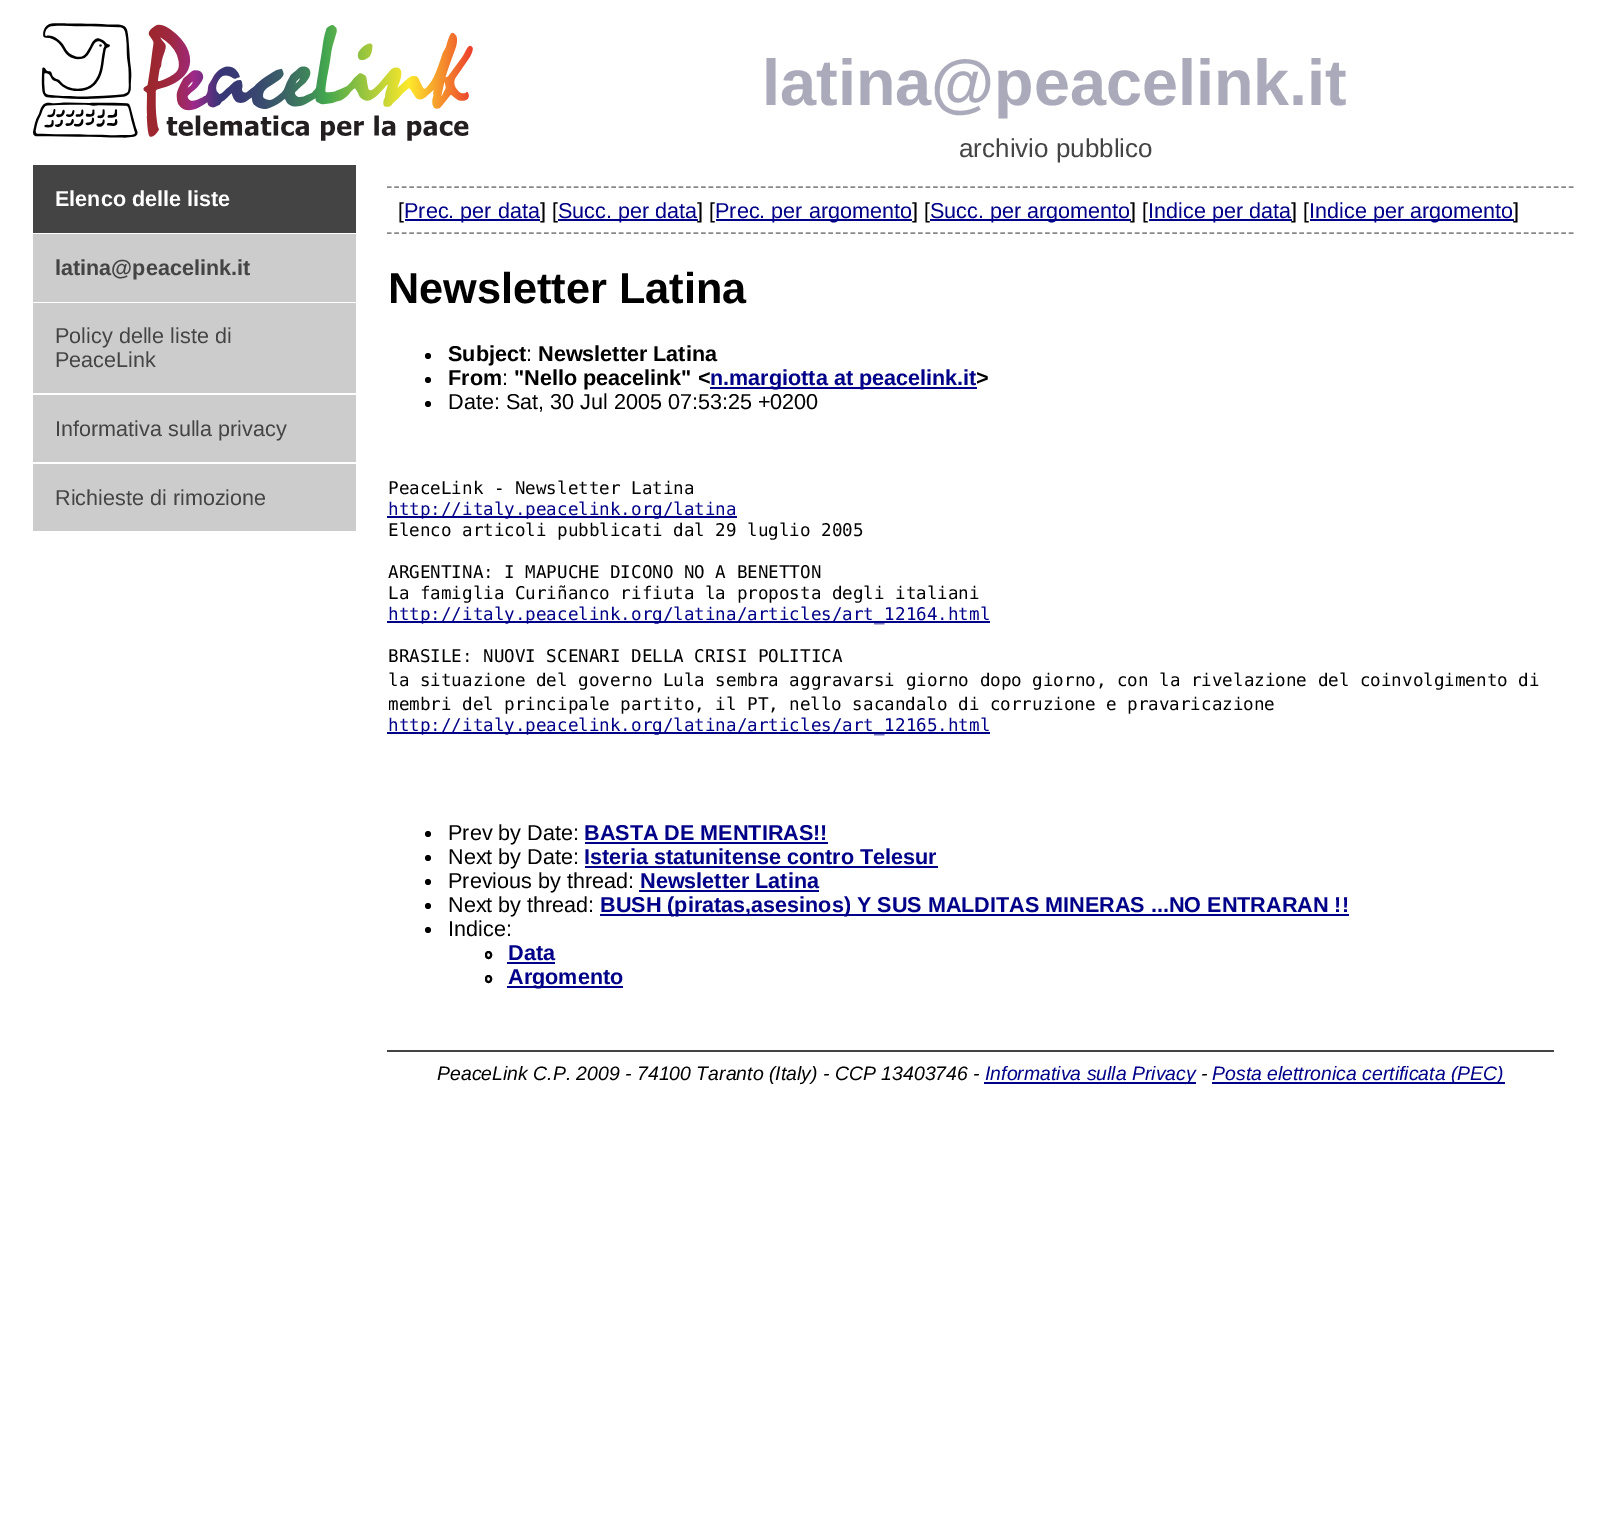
%!PS
<< /PageSize [1606 1540] >> setpagedevice
/rgb { 3 { 255 div 3 1 roll } repeat setrgbcolor } def
/font { [ exch dup neg 0 0 3 -1 roll 0 0 ] selectfont } def
/circle { newpath 0 360 arc closepath } def
/roundrect { 5 dict begin { /r /h /w /y /x } { exch def } forall
  x r add y moveto x w add y 2 copy h add r arct x w add y h add x 1 index r arct
  x y h add x y r arct x y 2 copy exch w add exch r arct closepath end } def
/picture { 5 dict begin { /h /w /y /x /name } { exch def } forall
  gsave x y translate w h scale
  w h 8 [w 0 0 h 0 0] name (r) file false 3 colorimage grestore end } def
0 1540 translate 1 -1 scale
4 setmiterlimit
255 255 255 rgb
0 0 1606 1540 rectfill
(img/1.rgb) 33 23 440 118 picture
[
  [33 165 323 68 68 68 68]
  [33 234 323 68 204 204 204]
  [33 303 323 90 204 204 204]
  [33 395 323 67 204 204 204]
  [33 464 323 67 204 204 204]
] { aload pop rgb rectfill } forall
136 136 136 rgb
1.5 setlinewidth
[4.5 2.98] 0 setdash
387 187 moveto 1573.5 187 lineto stroke
387 233 moveto 1573.5 233 lineto stroke
[
  [405 219 135 2 0 0 136]
  [558 219 140 2 0 0 136]
  [716 219 196 2 0 0 136]
  [930 219 201 2 0 0 136]
  [1149 219 143 2 0 0 136]
  [1310 219 204 2 0 0 136]
] { aload pop rgb rectfill } forall
0 0 0 rgb
428 356 3 circle fill
428 380 3 circle fill
0 0 136 rgb
710 387 267 2 rectfill
0 0 0 rgb
428 404 3 circle fill
[
  [387 516 350 2 0 0 136]
  [387 621 603 2 0 0 136]
  [387 732 603 2 0 0 136]
] { aload pop rgb rectfill } forall
0 0 0 rgb
428 834 3 circle fill
0 0 136 rgb
585 842 243 2 rectfill
0 0 0 rgb
428 858 3 circle fill
0 0 136 rgb
585 866 353 2 rectfill
0 0 0 rgb
428 882 3 circle fill
0 0 136 rgb
639 890 180 2 rectfill
0 0 0 rgb
428 906 3 circle fill
0 0 136 rgb
600 914 749 2 rectfill
0 0 0 rgb
428 930 3 circle fill
2 setlinewidth
[] 0 setdash
486 952 5 6 2.5 roundrect stroke
0 0 136 rgb
507 962 48 2 rectfill
0 0 0 rgb
486 976 5 6 2.5 roundrect stroke
[
  [507 986 116 2 0 0 136]
  [387 1050 1167 2 68 68 68]
  [984 1082 212 2 0 0 136]
  [1212 1082 293 2 0 0 136]
] { aload pop rgb rectfill } forall
/LiberationSans-Bold 64.75 font
170 170 187 rgb
762 105 moveto (latina@peacelink.it) show
/LiberationSans-Regular 26 font
68 68 68 rgb
959 157 moveto (archivio pubblico) show
/LiberationSans-Bold 21.6 font
255 255 255 rgb
55 206 moveto (Elenco delle liste) show
68 68 68 rgb
55 275 moveto (latina@peacelink.it) show
/LiberationSans-Regular 21.6 font
[
  [(Policy delle liste di) 55 343]
  [(PeaceLink) 55 367]
  [(Informativa sulla privacy) 55 436]
  [(Richieste di rimozione) 55 505]
] { aload pop moveto show } forall
0 0 0 rgb
398 218 moveto ([) show
0 0 136 rgb
404 218 moveto (Prec. per data) show
0 0 0 rgb
540 218 moveto (] [) show
0 0 136 rgb
558 218 moveto (Succ. per data) show
0 0 0 rgb
697 218 moveto (] [) show
0 0 136 rgb
715 218 moveto (Prec. per argomento) show
0 0 0 rgb
912 218 moveto (] [) show
0 0 136 rgb
930 218 moveto (Succ. per argomento) show
0 0 0 rgb
1130 218 moveto (] [) show
0 0 136 rgb
1148 218 moveto (Indice per data) show
0 0 0 rgb
1291 218 moveto (] [) show
0 0 136 rgb
1309 218 moveto (Indice per argomento) show
0 0 0 rgb
1513 218 moveto (]) show
/LiberationSans-Bold 43.25 font
388 303 moveto (Newsletter Latina) show
/LiberationSans-Bold 21.6 font
448 361 moveto (Subject) show
/LiberationSans-Regular 21.6 font
526 361 moveto (:) show
/LiberationSans-Bold 21.6 font
538 361 moveto (Newsletter Latina) show
448 385 moveto (From) show
/LiberationSans-Regular 21.6 font
502 385 moveto (:) show
/LiberationSans-Bold 21.6 font
514 385 moveto ("Nello peacelink" <) show
0 0 136 rgb
710 385 moveto (n.margiotta at peacelink.it) show
0 0 0 rgb
976 385 moveto (>) show
/LiberationSans-Regular 21.6 font
448 409 moveto (Date: Sat, 30 Jul 2005 07:53:25 +0200) show
/DejaVuSansMono-Regular 17.55 font
388 494 moveto (PeaceLink - Newsletter Latina) show
0 0 136 rgb
388 515 moveto (http://italy.peacelink.org/latina) show
0 0 0 rgb
[
  [(Elenco articoli pubblicati dal 29 luglio 2005) 388 536]
  [(ARGENTINA: I MAPUCHE DICONO NO A BENETTON) 388 578]
  [(La famiglia Curiñanco rifiuta la proposta degli italiani) 388 599]
] { aload pop moveto show } forall
0 0 136 rgb
388 620 moveto (http://italy.peacelink.org/latina/articles/art_12164.html) show
0 0 0 rgb
[
  [(BRASILE: NUOVI SCENARI DELLA CRISI POLITICA) 388 662]
  [(la situazione del governo Lula sembra aggravarsi giorno dopo giorno, con la rivelazione del coinvolgimento di) 388 686]
  [(membri del principale partito, il PT,) 388 710]
  [(nello sacandalo di corruzione e pravaricazione) 789 710]
] { aload pop moveto show } forall
0 0 136 rgb
388 731 moveto (http://italy.peacelink.org/latina/articles/art_12165.html) show
/LiberationSans-Regular 21.6 font
0 0 0 rgb
448 840 moveto (Prev by Date:) show
/LiberationSans-Bold 21.6 font
0 0 136 rgb
584 840 moveto (BASTA DE MENTIRAS!!) show
/LiberationSans-Regular 21.6 font
0 0 0 rgb
448 864 moveto (Next by Date:) show
/LiberationSans-Bold 21.6 font
0 0 136 rgb
584 864 moveto (Isteria statunitense contro Telesur) show
/LiberationSans-Regular 21.6 font
0 0 0 rgb
448 888 moveto (Previous by thread:) show
/LiberationSans-Bold 21.6 font
0 0 136 rgb
640 888 moveto (Newsletter Latina) show
/LiberationSans-Regular 21.6 font
0 0 0 rgb
448 912 moveto (Next by thread:) show
/LiberationSans-Bold 21.6 font
0 0 136 rgb
600 912 moveto (BUSH \(piratas,asesinos\) Y SUS MALDITAS MINERAS ...NO ENTRARAN !!) show
/LiberationSans-Regular 21.6 font
0 0 0 rgb
448 936 moveto (Indice:) show
/LiberationSans-Bold 21.6 font
0 0 136 rgb
508 960 moveto (Data) show
508 984 moveto (Argomento) show
/LiberationSans-Italic 19.45 font
0 0 0 rgb
437 1080 moveto (PeaceLink C.P. 2009 - 74100 Taranto \(Italy\) - CCP 13403746 -) show
0 0 136 rgb
985 1080 moveto (Informativa sulla Privacy) show
0 0 0 rgb
1201 1080 moveto (-) show
0 0 136 rgb
1212 1080 moveto (Posta elettronica certificata \(PEC\)) show
showpage
